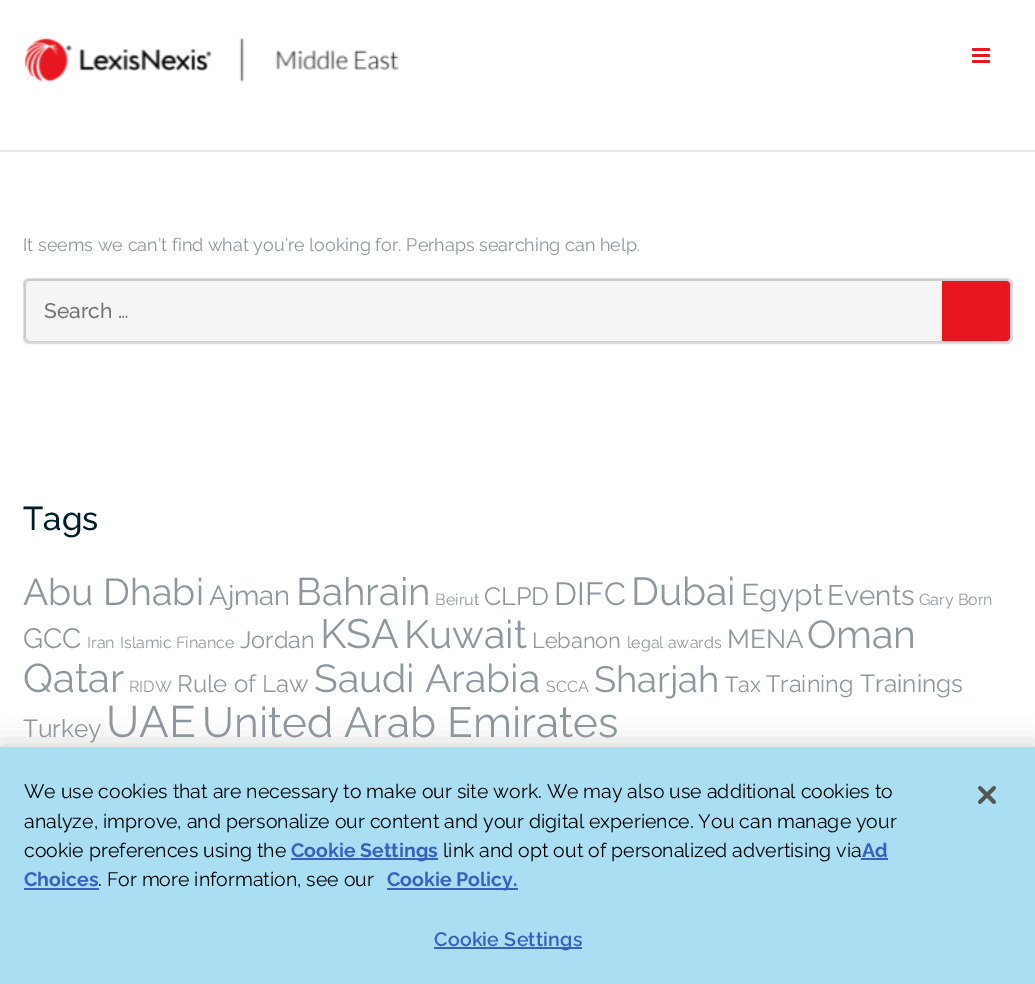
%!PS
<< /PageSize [1035 984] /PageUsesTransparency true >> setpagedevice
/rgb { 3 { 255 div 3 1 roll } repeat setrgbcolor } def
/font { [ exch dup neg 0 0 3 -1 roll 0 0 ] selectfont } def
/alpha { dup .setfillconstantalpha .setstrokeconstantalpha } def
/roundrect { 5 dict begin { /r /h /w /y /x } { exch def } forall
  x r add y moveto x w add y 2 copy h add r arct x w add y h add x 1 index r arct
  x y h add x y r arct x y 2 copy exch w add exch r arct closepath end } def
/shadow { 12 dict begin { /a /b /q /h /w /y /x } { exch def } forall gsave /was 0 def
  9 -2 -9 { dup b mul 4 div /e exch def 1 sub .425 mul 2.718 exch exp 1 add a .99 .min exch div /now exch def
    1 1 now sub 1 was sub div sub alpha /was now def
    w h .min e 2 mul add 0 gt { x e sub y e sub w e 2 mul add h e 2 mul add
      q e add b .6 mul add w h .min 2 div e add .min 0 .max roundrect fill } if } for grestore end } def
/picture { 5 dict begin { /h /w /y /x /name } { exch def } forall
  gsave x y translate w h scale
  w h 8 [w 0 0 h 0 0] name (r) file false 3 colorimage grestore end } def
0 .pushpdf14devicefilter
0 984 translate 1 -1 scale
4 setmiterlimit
255 255 255 rgb
0 0 1035 984 rectfill
230 230 230 rgb
0 150 1035 2 rectfill
(img/1.rgb) 23 37 377 45 picture
(img/2.rgb) 972 48 18 15 picture
221 221 221 rgb
2 setlinewidth
24 279 988 64 5 roundrect stroke
204 204 204 rgb
25 280 985 61 5 roundrect stroke
245 245 245 rgb
31 281 moveto 942 281 lineto 942 341 lineto 31 341 lineto 28 341 26 339 26 336 curveto 26 286 lineto 26 283 28 281 31 281 curveto closepath fill
232 23 31 rgb
942 281 moveto 1005 281 lineto 1008 281 1010 283 1010 286 curveto 1010 336 lineto 1010 339 1008 341 1005 341 curveto 942 341 lineto closepath fill
942 281 moveto 942 341 lineto 1005 341 lineto 1008 341 1010 339 1010 336 curveto 1010 286 lineto 1010 283 1008 281 1005 281 curveto closepath 945 284 moveto 1007 284 lineto 1007 338 lineto 945 338 lineto closepath eofill
0 0 0 rgb
0 747 1035 237 0 13.5 0.2 shadow
[
  [0 747 1035 237 170 222 243]
  [291 858 147 2 56 96 190]
  [861 858 27 2 56 96 190]
  [24 888 75 2 56 96 190]
  [387 888 131 2 56 96 190]
  [434 947 148 2 56 96 190]
] { aload pop rgb rectfill } forall
(img/3.rgb) 978 786 18 18 picture
/Raleway-Regular 18 font
140 151 158 rgb
23 251 moveto (It seems we can’t find what you’re looking for. Perhaps searching can help.) show
/Raleway-Medium 21 font
117 117 117 rgb
44 318 moveto (Search …) show
/Raleway-Medium 33 font
0 28 40 rgb
23 530 moveto (Tags) show
/Raleway-Regular 37.5 font
140 151 158 rgb
23 605 moveto (Abu Dhabi) show
/Raleway-Regular 27.5 font
209 605 moveto (Ajman) show
/Raleway-Regular 38.5 font
296 605 moveto (Bahrain) show
/Raleway-Regular 16 font
435 605 moveto (Beirut) show
/Raleway-Regular 25 font
484 605 moveto (CLPD) show
/Raleway-Regular 32 font
554 605 moveto (DIFC) show
/Raleway-Regular 39 font
631 605 moveto (Dubai) show
/Raleway-Regular 30 font
741 605 moveto (Egypt) show
/Raleway-Regular 28 font
827 605 moveto (Events) show
/Raleway-Regular 16 font
919 605 moveto (Gary Born) show
/Raleway-Regular 28 font
23 648 moveto (GCC) show
/Raleway-Regular 16 font
87 648 moveto (Iran) show
120 648 moveto (Islamic Finance) show
/Raleway-Regular 23.5 font
240 648 moveto (Jordan) show
/Raleway-Regular 41 font
320 648 moveto (KSA) show
/Raleway-Regular 39 font
404 648 moveto (Kuwait) show
/Raleway-Regular 21.75 font
532 648 moveto (Lebanon) show
/Raleway-Regular 16 font
627 648 moveto (legal awards) show
/Raleway-Regular 26 font
727 648 moveto (MENA) show
/Raleway-Regular 39 font
807 648 moveto (Oman) show
/Raleway-Regular 40 font
23 692 moveto (Qatar) show
/Raleway-Regular 16 font
129 692 moveto (RIDW) show
/Raleway-Regular 24 font
177 692 moveto (Rule of Law) show
/Raleway-Regular 39 font
314 692 moveto (Saudi Arabia) show
/Raleway-Regular 16 font
546 692 moveto (SCCA) show
/Raleway-Regular 36.5 font
594 692 moveto (Sharjah) show
/Raleway-Regular 21.75 font
725 692 moveto (Tax) show
/Raleway-Regular 23.5 font
766 692 moveto (Training) show
/Raleway-Regular 24.5 font
860 692 moveto (Trainings) show
23 737 moveto (Turkey) show
/Raleway-Regular 44 font
106 737 moveto (UAE) show
/Raleway-Regular 42.25 font
202 737 moveto (United Arab Emirates) show
/Raleway-Regular 19.5 font
0 0 0 rgb
[
  [(We use cookies that are necessary to make our site work. We may also use additional cookies to) 24 798]
  [(analyze, improve, and personalize our content and your digital experience. You can manage your) 24 828]
  [(cookie preferences using the) 24 857]
] { aload pop moveto show } forall
/Raleway-Bold 19.5 font
56 96 190 rgb
291 857 moveto (Cookie Settings) show
/Raleway-Regular 19.5 font
0 0 0 rgb
443 857 moveto (link and opt out of personalized advertising via) show
/Raleway-Bold 19.5 font
56 96 190 rgb
862 857 moveto (Ad) show
24 886 moveto (Choices) show
/Raleway-Regular 19.5 font
0 0 0 rgb
98 886 moveto (. For more information, see our) show
/Raleway-Bold 19.5 font
56 96 190 rgb
387 886 moveto (Cookie Policy.) show
/Raleway-SemiBold 19.5 font
434 946 moveto 0.25 0 (Cookie Settings) ashow
.poppdf14devicefilter showpage
